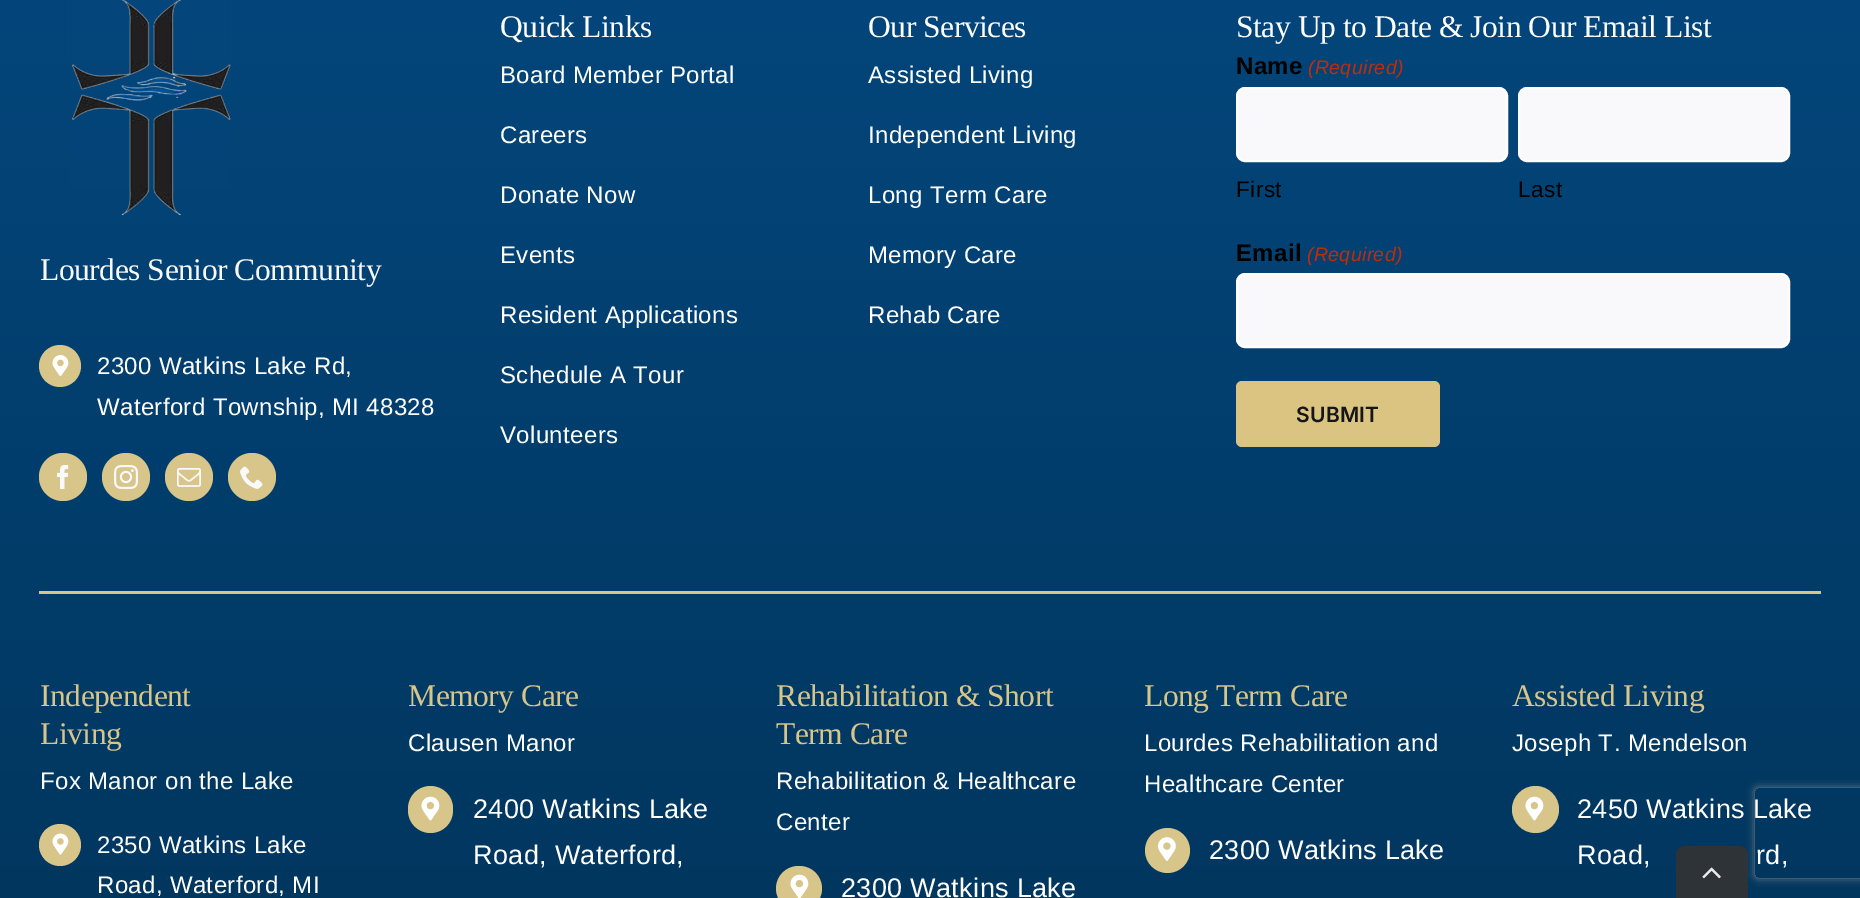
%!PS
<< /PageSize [1860 898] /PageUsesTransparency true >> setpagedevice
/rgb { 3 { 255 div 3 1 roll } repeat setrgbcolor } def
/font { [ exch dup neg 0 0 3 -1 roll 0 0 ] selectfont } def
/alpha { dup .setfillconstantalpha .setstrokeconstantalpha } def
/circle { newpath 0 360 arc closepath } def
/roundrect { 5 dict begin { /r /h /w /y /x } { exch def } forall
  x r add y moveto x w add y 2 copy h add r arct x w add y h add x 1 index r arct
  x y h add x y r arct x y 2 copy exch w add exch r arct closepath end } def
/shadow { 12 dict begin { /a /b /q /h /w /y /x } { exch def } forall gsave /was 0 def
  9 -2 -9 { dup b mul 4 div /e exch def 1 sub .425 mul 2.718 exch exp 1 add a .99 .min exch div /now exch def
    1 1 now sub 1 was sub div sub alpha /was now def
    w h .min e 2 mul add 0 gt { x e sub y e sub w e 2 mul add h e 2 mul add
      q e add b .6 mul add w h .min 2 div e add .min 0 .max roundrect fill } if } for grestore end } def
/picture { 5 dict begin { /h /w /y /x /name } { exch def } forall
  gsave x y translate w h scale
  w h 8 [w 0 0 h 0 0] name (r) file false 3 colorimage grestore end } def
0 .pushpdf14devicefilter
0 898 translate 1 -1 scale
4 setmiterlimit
255 255 255 rgb
0 0 1860 898 rectfill
gsave 0 0 moveto 1860 0 lineto 1860 898 lineto 0 898 lineto closepath clip newpath
<< /ShadingType 2 /ColorSpace /DeviceRGB /Coords [930 -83 930 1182] /Extend [true true] /Function << /FunctionType 2 /Domain [0 1] /C0 [0.016 0.278 0.494] /C1 [0 0.196 0.337] /N 1 >> >> shfill grestore
(img/1.rgb) 71 0 160 216 picture
215 197 138 rgb
60 366 21 circle fill
(img/2.rgb) 52 355 17 22 picture
63 477 24 circle fill
(img/3.rgb) 57 465 12 24 picture
126 477 24 circle fill
(img/4.rgb) 114 465 24 24 picture
189 477 24 circle fill
(img/5.rgb) 177 468 24 19 picture
252 477 24 circle fill
(img/6.rgb) 240 466 23 23 picture
249 249 251 rgb
1237 88 270 73 8 roundrect gsave fill grestore
255 255 255 rgb
2 setlinewidth
stroke
249 249 251 rgb
1519 88 270 73 8 roundrect gsave fill grestore
255 255 255 rgb
stroke
249 249 251 rgb
1237 274 552 73 8 roundrect gsave fill grestore
255 255 255 rgb
stroke
219 196 130 rgb
1236 381 204 66 6 roundrect fill
215 197 138 rgb
39 591 1782 3 rectfill
60 845 21 circle fill
(img/7.rgb) 52 833 17 22 picture
408 786 45 47 22.5 roundrect fill
(img/8.rgb) 421 796 19 25 picture
776 866 46 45 22.5 roundrect fill
(img/9.rgb) 790 874 19 24 picture
1167.5 850.5 22.5 circle fill
(img/10.rgb) 1158 837 18 24 picture
1535.5 809.5 23.5 circle fill
(img/8.rgb) 1525 796 19 25 picture
gsave
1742 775 moveto 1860 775 lineto 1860 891 lineto 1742 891 lineto closepath 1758 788 moveto 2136 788 lineto 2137.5 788 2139 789.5 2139 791 curveto 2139 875 lineto 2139 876.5 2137.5 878 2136 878 curveto 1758 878 lineto 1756.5 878 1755 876.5 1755 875 curveto 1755 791 lineto 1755 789.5 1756.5 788 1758 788 curveto closepath eoclip newpath
128 128 128 rgb
1755 788 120 90 3 4 1 shadow
grestore
0.9 alpha
51 51 51 rgb
1685 846 moveto 1739 846 lineto 1744 846 1748 850 1748 855 curveto 1748 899 lineto 1676 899 lineto 1676 855 lineto 1676 850 1680 846 1685 846 curveto closepath fill
1 alpha
(img/11.rgb) 1702 867 19 12 picture
/LiberationSerif-Regular 31.5 font
249 249 251 rgb
40 280 moveto -0.45 0 (Lourdes Senior Community) ashow
/LiberationSans-Regular 24 font
255 255 255 rgb
97 374 moveto 0.35 0 (2300 Watkins Lake Rd,) ashow
97 415 moveto 0.35 0 (Waterford Township, MI 48328) ashow
/LiberationSerif-Regular 31.5 font
500 37 moveto -0.45 0 (Quick Links) ashow
/LiberationSans-Regular 24 font
500 83 moveto 0.35 0 (Board Member Portal) ashow
500 143 moveto 0.35 0 (Careers) ashow
500 203 moveto 0.35 0 (Donate Now) ashow
500 263 moveto 0.35 0 (Events) ashow
500 323 moveto 0.35 0 (Resident Applications) ashow
500 383 moveto 0.35 0 (Schedule A Tour) ashow
500 443 moveto 0.35 0 (Volunteers) ashow
/LiberationSerif-Regular 31.5 font
868 37 moveto -0.45 0 (Our Services) ashow
/LiberationSans-Regular 24 font
868 83 moveto 0.35 0 (Assisted Living) ashow
868 143 moveto 0.35 0 (Independent Living) ashow
868 203 moveto 0.35 0 (Long Term Care) ashow
868 263 moveto 0.35 0 (Memory Care) ashow
868 323 moveto 0.35 0 (Rehab Care) ashow
/LiberationSerif-Regular 31.5 font
1236 37 moveto -0.45 0 (Stay Up to Date & Join Our Email List) ashow
/LiberationSans-Bold 24 font
0 0 0 rgb
1236 74 moveto 0.35 0 (Name) ashow
/LiberationSans-Italic 19.5 font
192 43 10 rgb
1308 74 moveto 0.35 0 (\(Required\)) ashow
/LiberationSans-Regular 22.5 font
0 0 0 rgb
1236 197 moveto 0.5 0 (First) ashow
1518 197 moveto 0.5 0 (Last) ashow
/LiberationSans-Bold 24 font
1236 261 moveto 0.35 0 (Email) ashow
/LiberationSans-Italic 19.5 font
192 43 10 rgb
1307 261 moveto 0.35 0 (\(Required\)) ashow
/Inter-SemiBold 21 font
20 22 23 rgb
1296 422 moveto 0.25 0 (SUBMIT) ashow
/LiberationSerif-Regular 31.5 font
215 197 138 rgb
40 706 moveto -0.45 0 (Independent) ashow
40 744 moveto -0.45 0 (Living) ashow
/LiberationSans-Regular 24 font
255 255 255 rgb
40 789 moveto 0.35 0 (Fox Manor on the Lake) ashow
97 853 moveto 0.35 0 (2350 Watkins Lake) ashow
97 893 moveto 0.35 0 (Road, Waterford, MI) ashow
/LiberationSerif-Regular 31.5 font
215 197 138 rgb
408 706 moveto -0.45 0 (Memory Care) ashow
/LiberationSans-Regular 24 font
255 255 255 rgb
408 751 moveto 0.35 0 (Clausen Manor) ashow
/LiberationSans-Regular 27 font
473 818 moveto 0.35 0 (2400 Watkins Lake) ashow
473 864 moveto 0.35 0 (Road, Waterford,) ashow
/LiberationSerif-Regular 31.5 font
215 197 138 rgb
776 706 moveto -0.45 0 (Rehabilitation & Short) ashow
776 744 moveto -0.45 0 (Term Care) ashow
/LiberationSans-Regular 24 font
255 255 255 rgb
776 789 moveto 0.35 0 (Rehabilitation & Healthcare) ashow
776 830 moveto 0.35 0 (Center) ashow
/LiberationSans-Regular 27 font
841 897 moveto 0.35 0 (2300 Watkins Lake) ashow
/LiberationSerif-Regular 31.5 font
215 197 138 rgb
1144 706 moveto -0.45 0 (Long Term Care) ashow
/LiberationSans-Regular 24 font
255 255 255 rgb
1144 751 moveto 0.35 0 (Lourdes Rehabilitation and) ashow
1144 792 moveto 0.35 0 (Healthcare Center) ashow
/LiberationSans-Regular 27 font
1209 859 moveto 0.35 0 (2300 Watkins Lake) ashow
/LiberationSerif-Regular 31.5 font
215 197 138 rgb
1512 706 moveto -0.45 0 (Assisted Living) ashow
/LiberationSans-Regular 24 font
255 255 255 rgb
1512 751 moveto 0.35 0 (Joseph T. Mendelson) ashow
/LiberationSans-Regular 27 font
1577 818 moveto 0.35 0 (2450 Watkins Lake) ashow
1577 864 moveto 0.35 0 (Road,) ashow
1756 864 moveto 0.35 0 (rd,) ashow
.poppdf14devicefilter showpage
